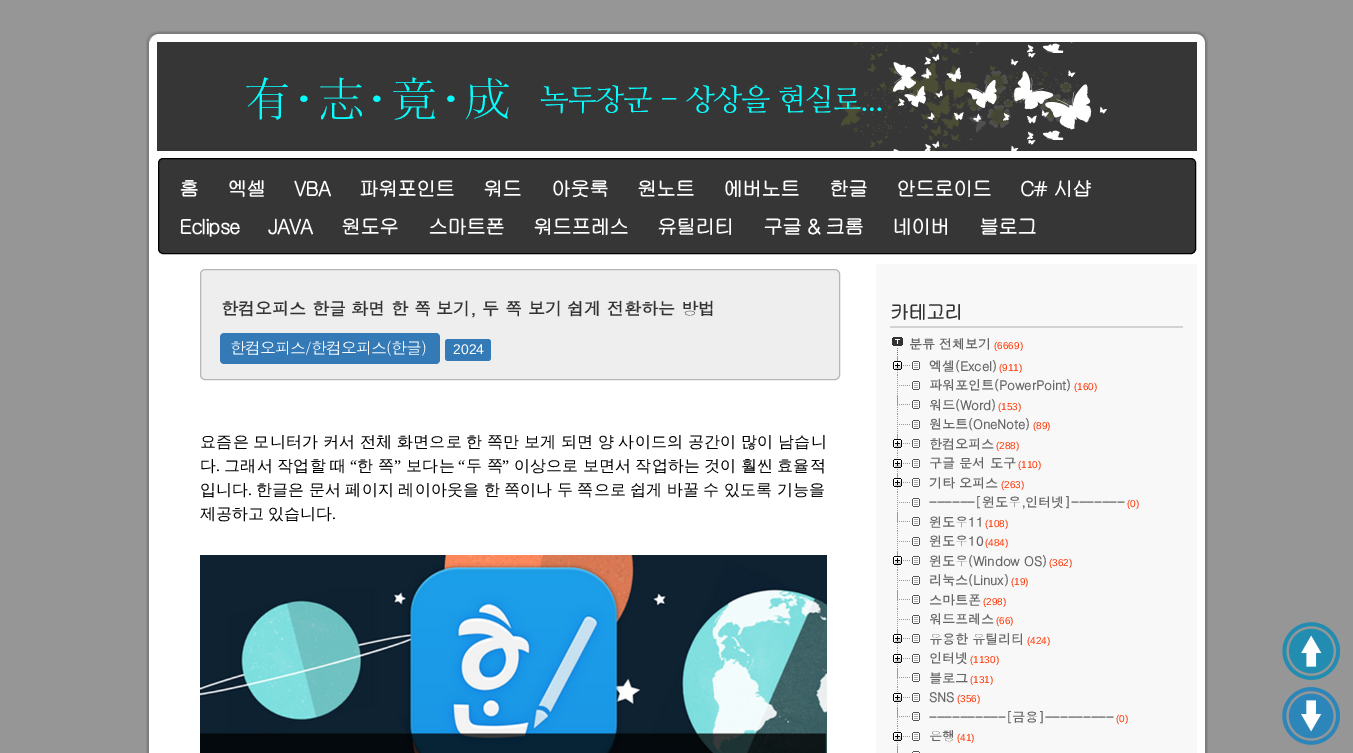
%!PS
<< /PageSize [1353 753] >> setpagedevice
/rgb { 3 { 255 div 3 1 roll } repeat setrgbcolor } def
/font { [ exch dup neg 0 0 3 -1 roll 0 0 ] selectfont } def
/roundrect { 5 dict begin { /r /h /w /y /x } { exch def } forall
  x r add y moveto x w add y 2 copy h add r arct x w add y h add x 1 index r arct
  x y h add x y r arct x y 2 copy exch w add exch r arct closepath end } def
/picture { 5 dict begin { /h /w /y /x /name } { exch def } forall
  gsave x y translate w h scale
  w h 8 [w 0 0 h 0 0] name (r) file false 3 colorimage grestore end } def
0 753 translate 1 -1 scale
4 setmiterlimit
150 150 150 rgb
0 0 1353 753 rectfill
(img/1.rgb) 146 32 11 10 picture
(img/2.rgb) 157 31 1040 11 picture
(img/3.rgb) 1197 31 11 11 picture
(img/4.rgb) 146 42 11 711 picture
(img/5.rgb) 1197 42 11 711 picture
255 255 255 rgb
157 151 1040 602 rectfill
(img/6.rgb) 157 42 1040 109 picture
54 54 54 rgb
158.5 158.5 1037 95 4.5 roundrect gsave fill grestore
0 0 0 rgb
stroke
238 238 238 rgb
200.5 269.5 639 110 4.5 roundrect gsave fill grestore
182 182 182 rgb
stroke
51 122 183 rgb
224 333 moveto 426 333 lineto 426 364 lineto 224 364 lineto 222 364 220 362 220 360 curveto 220 337 lineto 220 335 222 333 224 333 curveto closepath fill
426 333 moveto 436 333 lineto 438 333 440 335 440 337 curveto 440 360 lineto 440 362 438 364 436 364 curveto 426 364 lineto closepath fill
445 339 46 22 3 roundrect fill
(img/7.rgb) 200 555 627 198 picture
248 248 248 rgb
876 264 321 489 rectfill
211 211 211 rgb
890 326 293 2 rectfill
(img/8.rgb) 892 337 11 18 picture
(img/9.rgb) 897 356 1 19 picture
(img/10.rgb) 893 357 27 13 picture
(img/9.rgb) 897 375 1 19 picture
(img/11.rgb) 899 381 21 9 picture
(img/9.rgb) 897 395 1 19 picture
(img/12.rgb) 897 396 23 13 picture
(img/9.rgb) 897 414 1 19 picture
(img/11.rgb) 899 420 21 9 picture
(img/9.rgb) 897 434 1 19 picture
(img/10.rgb) 893 435 27 13 picture
(img/9.rgb) 897 453 1 19 picture
(img/13.rgb) 893 459 27 9 picture
(img/9.rgb) 897 473 1 19 picture
(img/10.rgb) 893 474 27 13 picture
(img/9.rgb) 897 492 1 19 picture
(img/11.rgb) 899 498 21 9 picture
(img/9.rgb) 897 512 1 19 picture
(img/12.rgb) 897 513 23 13 picture
(img/9.rgb) 897 531 1 19 picture
(img/11.rgb) 899 537 21 9 picture
(img/9.rgb) 897 551 1 19 picture
(img/10.rgb) 893 552 27 13 picture
(img/9.rgb) 897 570 1 19 picture
(img/11.rgb) 899 576 21 9 picture
(img/9.rgb) 897 590 1 19 picture
(img/12.rgb) 897 591 23 13 picture
(img/9.rgb) 897 609 1 19 picture
(img/11.rgb) 899 615 21 9 picture
(img/9.rgb) 897 629 1 19 picture
(img/10.rgb) 893 630 27 13 picture
(img/9.rgb) 897 648 1 19 picture
(img/13.rgb) 893 654 27 9 picture
(img/9.rgb) 897 668 1 19 picture
(img/12.rgb) 897 669 23 13 picture
(img/9.rgb) 897 687 1 19 picture
(img/13.rgb) 893 693 27 9 picture
(img/9.rgb) 897 707 1 19 picture
(img/12.rgb) 897 708 23 13 picture
(img/9.rgb) 897 726 1 19 picture
(img/13.rgb) 893 732 27 9 picture
(img/14.rgb) 897 746 1 7 picture
(img/15.rgb) 897 747 23 6 picture
(img/16.rgb) 1282 622 59 58 picture
(img/17.rgb) 1282 687 58 58 picture
/Gulim-Bold 20 font
255 255 255 rgb
179 196 moveto -1 0 (홈) ashow
227 196 moveto -1 0 (엑셀) ashow
294 196 moveto -1 0 (VBA) ashow
359 196 moveto -1 0 (파워포인트) ashow
483 196 moveto -1 0 (워드) ashow
551 196 moveto -1 0 (아웃룩) ashow
637 196 moveto -1 0 (원노트) ashow
723 196 moveto -1 0 (에버노트) ashow
829 196 moveto -1 0 (한글) ashow
896 196 moveto -1 0 (안드로이드) ashow
1020 196 moveto -1 0 (C# 시샵) ashow
179 234 moveto -1 0 (Eclipse) ashow
268 234 moveto -1 0 (JAVA) ashow
341 234 moveto -1 0 (원도우) ashow
428 234 moveto -1 0 (스마트폰) ashow
533 234 moveto -1 0 (워드프레스) ashow
657 234 moveto -1 0 (유틸리티) ashow
763 234 moveto -1 0 (구글 & 크롬) ashow
892 234 moveto -1 0 (네이버) ashow
979 234 moveto -1 0 (블로그) ashow
/Dotum-Bold 17 font
51 51 51 rgb
221 315 moveto (한컴오피스 한글 화면 한 쪽 보기, 두 쪽 보기 쉽게 전환하는 방법) show
/Dotum-Regular 16 font
255 255 255 rgb
230 354 moveto -1 0 (한컴오피스/한컴오피스\(한글\)) ashow
/LiberationSans-Regular 14 font
453 354 moveto (2024) show
/WenQuanYiZenHei-Medium 16 font
0 0 0 rgb
200 447 moveto -0.75 0 32 0.3 0 (요즘은 모니터가 커서 전체 화면으로 한 쪽만 보게 되면 양 사이드의 공간이 많이 남습니) awidthshow
200 471 moveto (다) show
224 471 moveto -0.75 0 32 0.25 0 (그래서 작업할 때) awidthshow
/LiberationSerif-Regular 16 font
350 471 moveto (“) show
/WenQuanYiZenHei-Medium 16 font
357 471 moveto -0.75 0 32 0.5 0 (한 쪽) awidthshow
/LiberationSerif-Regular 16 font
394 471 moveto (”) show
/WenQuanYiZenHei-Medium 16 font
406 471 moveto 0.25 0 (보다는) ashow
/LiberationSerif-Regular 16 font
458 471 moveto (“) show
/WenQuanYiZenHei-Medium 16 font
466 471 moveto -0.75 0 32 0.5 0 (두 쪽) awidthshow
/LiberationSerif-Regular 16 font
502 471 moveto (”) show
/WenQuanYiZenHei-Medium 16 font
514 471 moveto -0.75 0 32 0.15 0 (이상으로 보면서 작업하는 것이 훨씬 효율적) awidthshow
/LiberationSerif-Regular 16 font
216 471 moveto (.) show
/WenQuanYiZenHei-Medium 16 font
200 495 moveto (입니다) show
/LiberationSerif-Regular 16 font
248 495 moveto (.) show
/WenQuanYiZenHei-Medium 16 font
256 495 moveto -0.75 0 32 0.2 0 (한글은 문서 페이지 레이아웃을 한 쪽이나 두 쪽으로 쉽게 바꿀 수 있도록 기능을) awidthshow
200 519 moveto -0.75 0 32 (제공하고 있습니다) widthshow
/LiberationSerif-Regular 16 font
332 519 moveto (.) show
/Gulim-Bold 19 font
51 51 51 rgb
890 319 moveto -1 0 (카테고리) ashow
/Dotum-Bold 13 font
102 102 102 rgb
909 349 moveto (분류 전체보기) show
/LiberationSans-Regular 10 font
255 51 0 rgb
994 349 moveto (\(6669\)) show
/Dotum-Bold 13 font
102 102 102 rgb
929 371 moveto (엑셀\(Excel\)) show
/LiberationSans-Regular 10 font
255 51 0 rgb
999 371 moveto (\(911\)) show
/Dotum-Bold 13 font
102 102 102 rgb
929 390 moveto (파워포인트\(PowerPoint\)) show
/LiberationSans-Regular 10 font
255 51 0 rgb
1074 390 moveto (\(160\)) show
/Dotum-Bold 13 font
102 102 102 rgb
929 410 moveto (워드\(Word\)) show
/LiberationSans-Regular 10 font
255 51 0 rgb
998 410 moveto (\(153\)) show
/Dotum-Bold 13 font
102 102 102 rgb
929 429 moveto (원노트\(OneNote\)) show
/LiberationSans-Regular 10 font
255 51 0 rgb
1033 429 moveto (\(89\)) show
/Dotum-Bold 13 font
102 102 102 rgb
929 449 moveto (한컴오피스) show
/LiberationSans-Regular 10 font
255 51 0 rgb
996 449 moveto (\(288\)) show
/Dotum-Bold 13 font
102 102 102 rgb
929 468 moveto (구글 문서 도구) show
/LiberationSans-Regular 10 font
255 51 0 rgb
1018 468 moveto (\(110\)) show
/Dotum-Bold 13 font
102 102 102 rgb
929 488 moveto (기타 오피스) show
/LiberationSans-Regular 10 font
255 51 0 rgb
1001 488 moveto (\(263\)) show
/Dotum-Bold 13 font
102 102 102 rgb
929 507 moveto (------[윈도우,인터넷]-------) show
/LiberationSans-Regular 10 font
255 51 0 rgb
1127 507 moveto (\(0\)) show
/Dotum-Bold 13 font
102 102 102 rgb
929 527 moveto (윈도우11) show
/LiberationSans-Regular 10 font
255 51 0 rgb
985 527 moveto (\(108\)) show
/Dotum-Bold 13 font
102 102 102 rgb
929 546 moveto (윈도우10) show
/LiberationSans-Regular 10 font
255 51 0 rgb
985 546 moveto (\(484\)) show
/Dotum-Bold 13 font
102 102 102 rgb
929 566 moveto (윈도우\(Window OS\)) show
/LiberationSans-Regular 10 font
255 51 0 rgb
1049 566 moveto (\(362\)) show
/Dotum-Bold 13 font
102 102 102 rgb
929 585 moveto (리눅스\(Linux\)) show
/LiberationSans-Regular 10 font
255 51 0 rgb
1011 585 moveto (\(19\)) show
/Dotum-Bold 13 font
102 102 102 rgb
929 605 moveto (스마트폰) show
/LiberationSans-Regular 10 font
255 51 0 rgb
983 605 moveto (\(298\)) show
/Dotum-Bold 13 font
102 102 102 rgb
929 624 moveto (워드프레스) show
/LiberationSans-Regular 10 font
255 51 0 rgb
996 624 moveto (\(66\)) show
/Dotum-Bold 13 font
102 102 102 rgb
929 644 moveto (유용한 유틸리티) show
/LiberationSans-Regular 10 font
255 51 0 rgb
1027 644 moveto (\(424\)) show
/Dotum-Bold 13 font
102 102 102 rgb
929 663 moveto (인터넷) show
/LiberationSans-Regular 10 font
255 51 0 rgb
970 663 moveto (\(1130\)) show
/Dotum-Bold 13 font
102 102 102 rgb
929 683 moveto (블로그) show
/LiberationSans-Regular 10 font
255 51 0 rgb
970 683 moveto (\(131\)) show
/Dotum-Bold 13 font
102 102 102 rgb
929 702 moveto (SNS) show
/LiberationSans-Regular 10 font
255 51 0 rgb
957 702 moveto (\(356\)) show
/Dotum-Bold 13 font
102 102 102 rgb
929 722 moveto (----------[금융]---------) show
/LiberationSans-Regular 10 font
255 51 0 rgb
1116 722 moveto (\(0\)) show
/Dotum-Bold 13 font
102 102 102 rgb
929 741 moveto (은행) show
/LiberationSans-Regular 10 font
255 51 0 rgb
957 741 moveto (\(41\)) show
showpage
